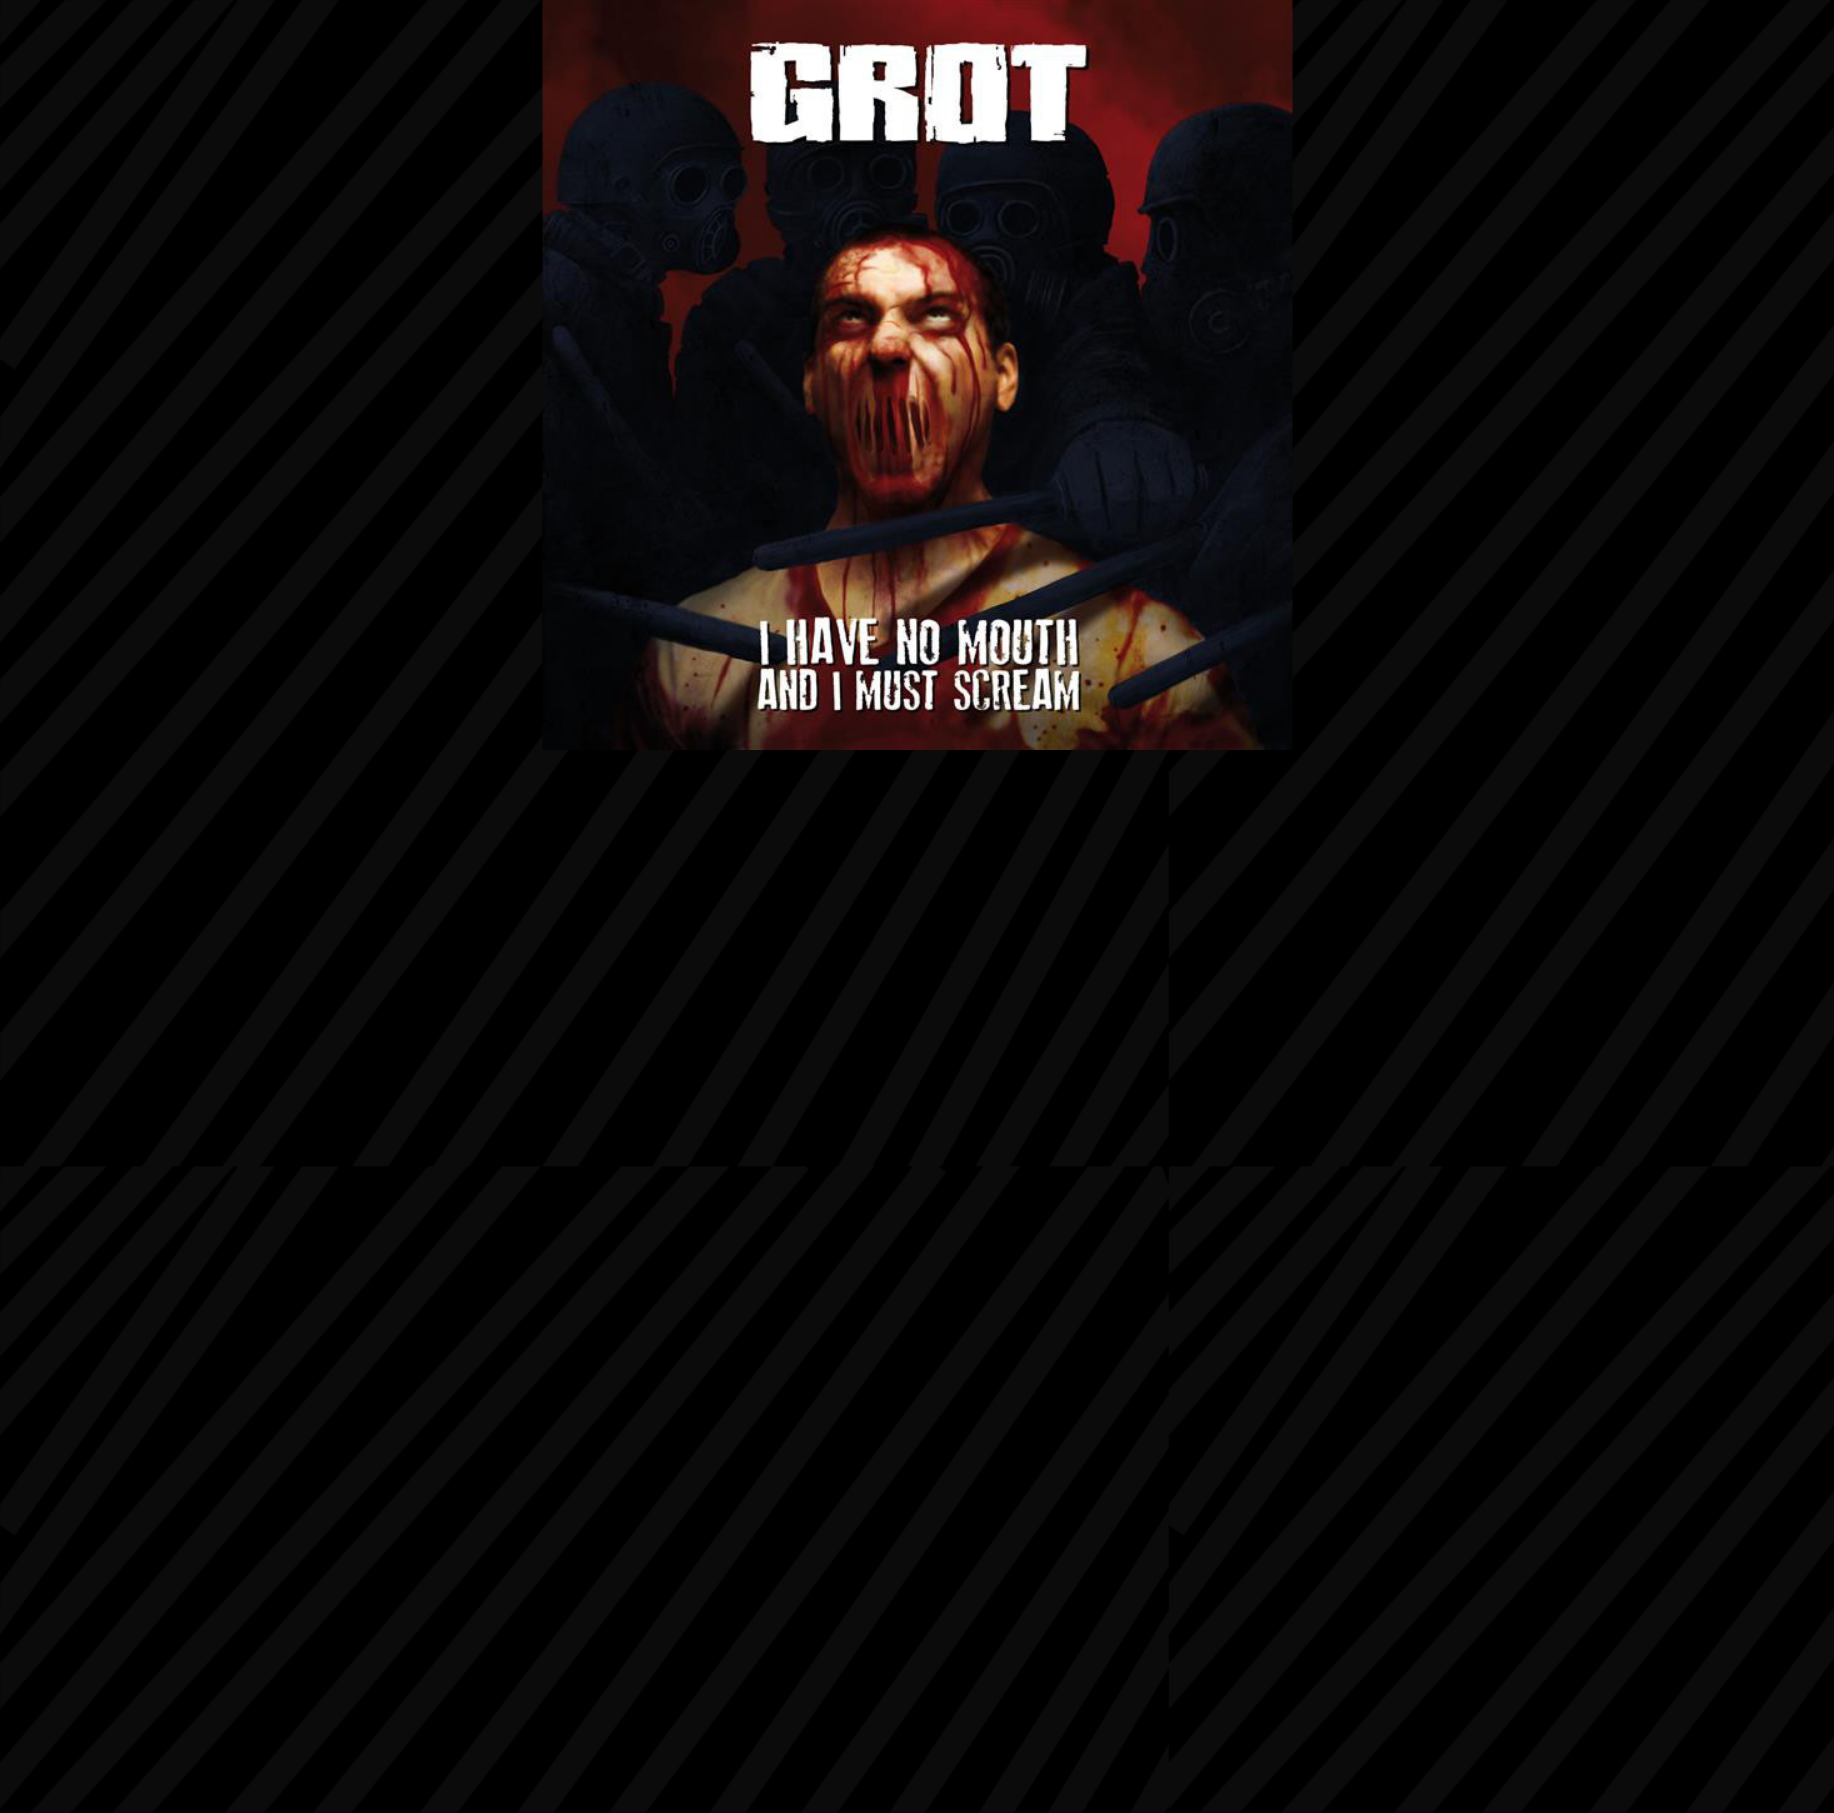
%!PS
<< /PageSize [1834 1813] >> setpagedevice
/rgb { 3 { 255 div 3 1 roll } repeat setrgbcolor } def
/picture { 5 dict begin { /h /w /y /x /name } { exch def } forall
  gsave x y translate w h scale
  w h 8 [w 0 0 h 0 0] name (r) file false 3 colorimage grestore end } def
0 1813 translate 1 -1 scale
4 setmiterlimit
255 255 255 rgb
0 0 1834 1813 rectfill
(img/1.rgb) 0 0 1834 1813 picture
(img/2.rgb) 542 0 751 750 picture
showpage
